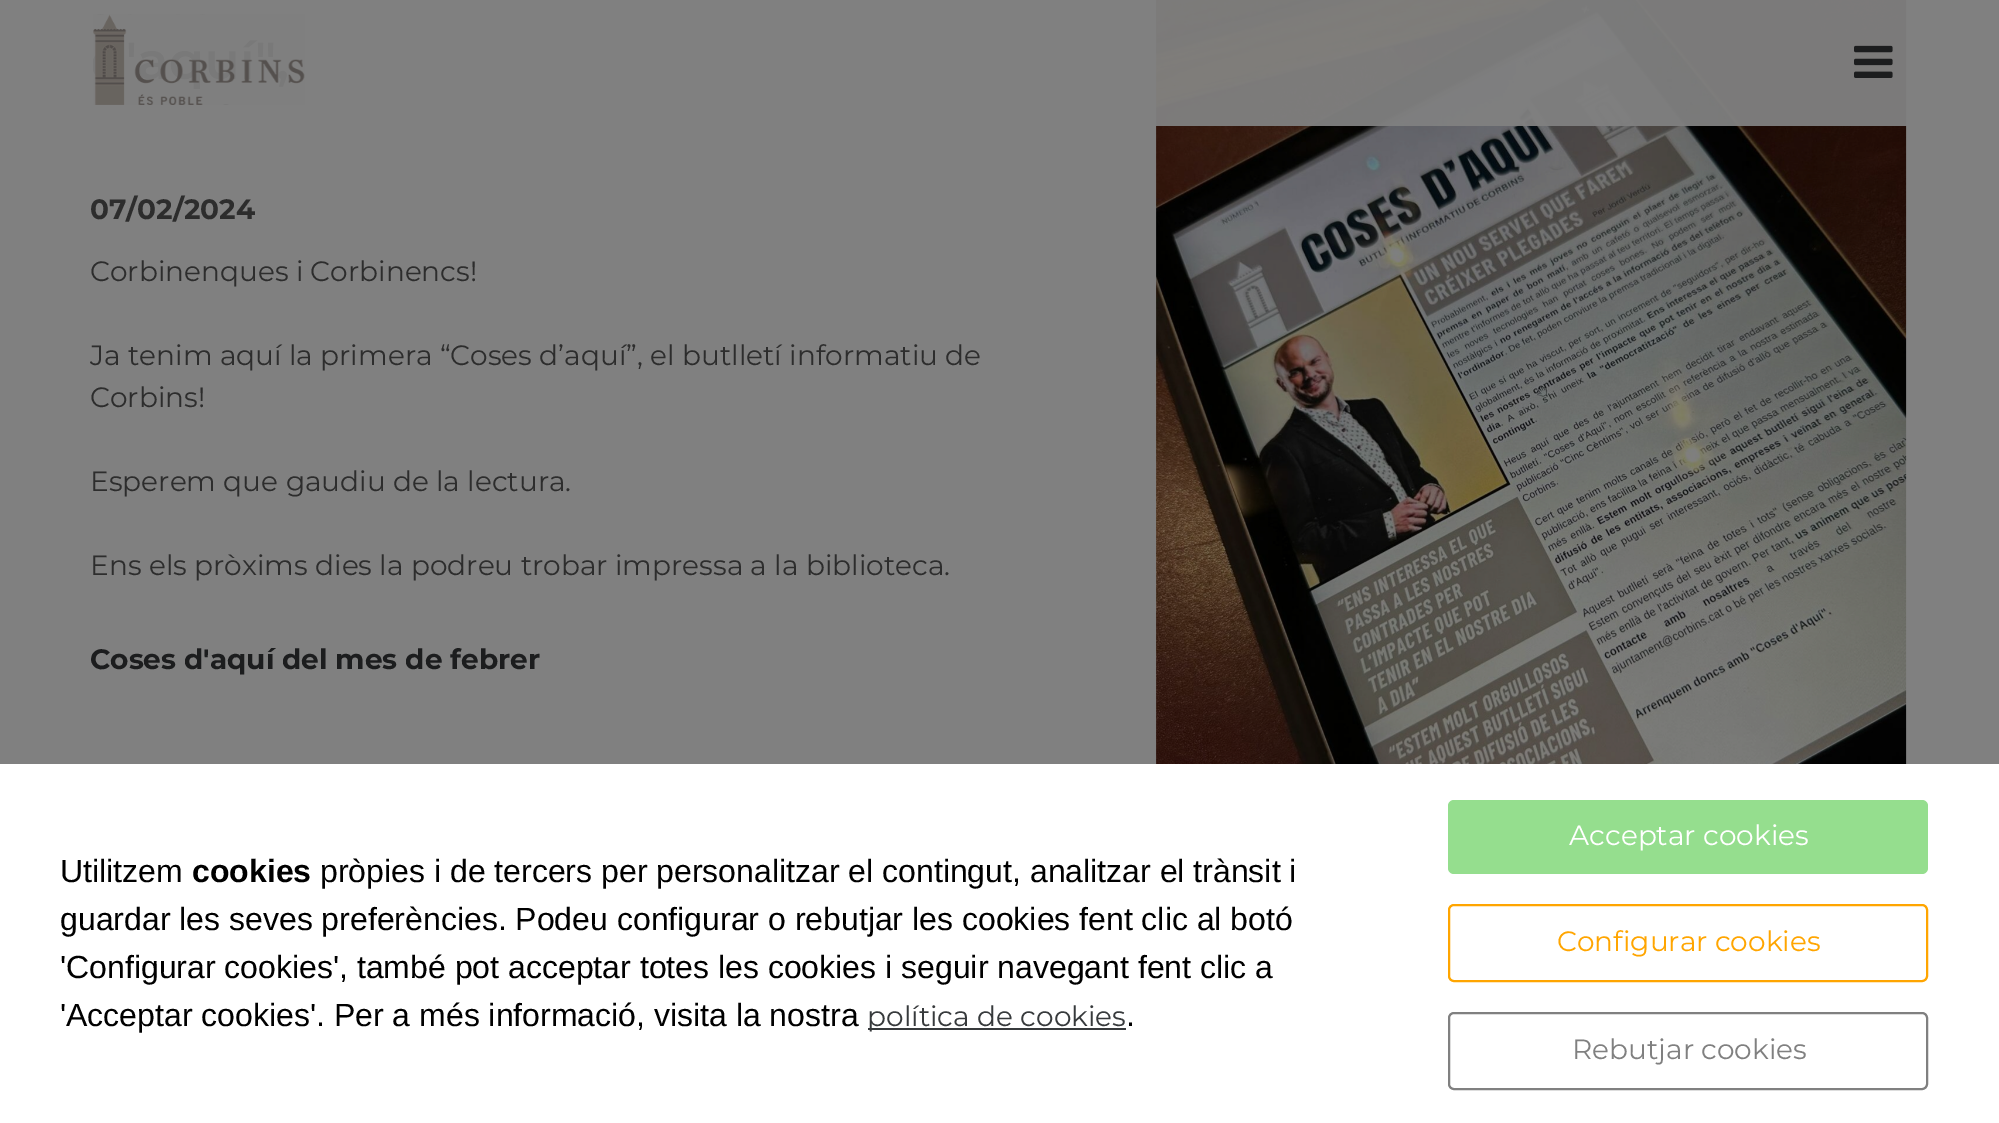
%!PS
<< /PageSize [1999 1123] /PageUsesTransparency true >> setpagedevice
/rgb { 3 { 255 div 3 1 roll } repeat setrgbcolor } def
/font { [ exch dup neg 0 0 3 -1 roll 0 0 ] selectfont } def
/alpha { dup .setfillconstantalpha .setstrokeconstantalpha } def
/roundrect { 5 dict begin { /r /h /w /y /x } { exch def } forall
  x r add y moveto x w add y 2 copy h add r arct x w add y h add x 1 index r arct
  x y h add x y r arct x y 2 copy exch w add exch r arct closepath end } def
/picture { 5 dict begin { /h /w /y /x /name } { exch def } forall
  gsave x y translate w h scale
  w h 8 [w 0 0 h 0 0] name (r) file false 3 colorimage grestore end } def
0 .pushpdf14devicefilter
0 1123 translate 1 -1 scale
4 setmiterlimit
128 128 128 rgb
0 0 1999 1123 rectfill
(img/3.rgb) 1156 0 751 764 picture
0.95 alpha
1156 0 751 126 rectfill
1 alpha
(img/1.rgb) 93 14 212 91 picture
(img/2.rgb) 1854 45 39 33 picture
255 255 255 rgb
0 764 1999 359 rectfill
55 58 60 rgb
868 1028 258 2 rectfill
149 222 142 rgb
1448 800 480 74 6 roundrect fill
255 165 0 rgb
2 setlinewidth
1449 905 478 76 5 roundrect stroke
128 128 128 rgb
1449 1013 478 76 5 roundrect stroke
/Montserrat-Bold 28 font
45 45 45 rgb
90 219 moveto (07/02/2024) show
/Montserrat-Regular 28 font
[
  [(Corbinenques i Corbinencs!) 90 281]
  [(Ja tenim aquí la primera “Coses d’aquí”, el butlletí informatiu de) 90 365]
  [(Corbins!) 90 407]
  [(Esperem que gaudiu de la lectura.) 90 491]
  [(Ens els pròxims dies la podreu trobar impressa a la biblioteca.) 90 575]
] { aload pop moveto show } forall
/Montserrat-Bold 28 font
28 29 30 rgb
90 669 moveto (Coses d'aquí del mes de febrer) show
/LiberationSans-Regular 32 font
0 0 0 rgb
60 882 moveto (Utilitzem) show
/LiberationSans-Bold 32 font
192 882 moveto (cookies) show
/LiberationSans-Regular 32 font
[
  [(pròpies i de tercers per personalitzar el contingut, analitzar el trànsit i) 320 882]
  [(guardar les seves preferències. Podeu configurar o rebutjar les cookies fent clic al botó) 60 930]
  [('Configurar cookies', també pot acceptar totes les cookies i seguir navegant fent clic a) 60 978]
  [('Acceptar cookies'. Per a més informació, visita la nostra) 60 1026]
] { aload pop moveto show } forall
/Montserrat-Regular 28 font
55 58 60 rgb
867 1026 moveto (política de cookies) show
/LiberationSans-Regular 32 font
0 0 0 rgb
1126 1026 moveto (.) show
/Montserrat-Regular 28 font
255 255 255 rgb
1569 845 moveto (Acceptar cookies) show
255 165 0 rgb
1557 951 moveto (Configurar cookies) show
128 128 128 rgb
1572 1059 moveto (Rebutjar cookies) show
.poppdf14devicefilter showpage
